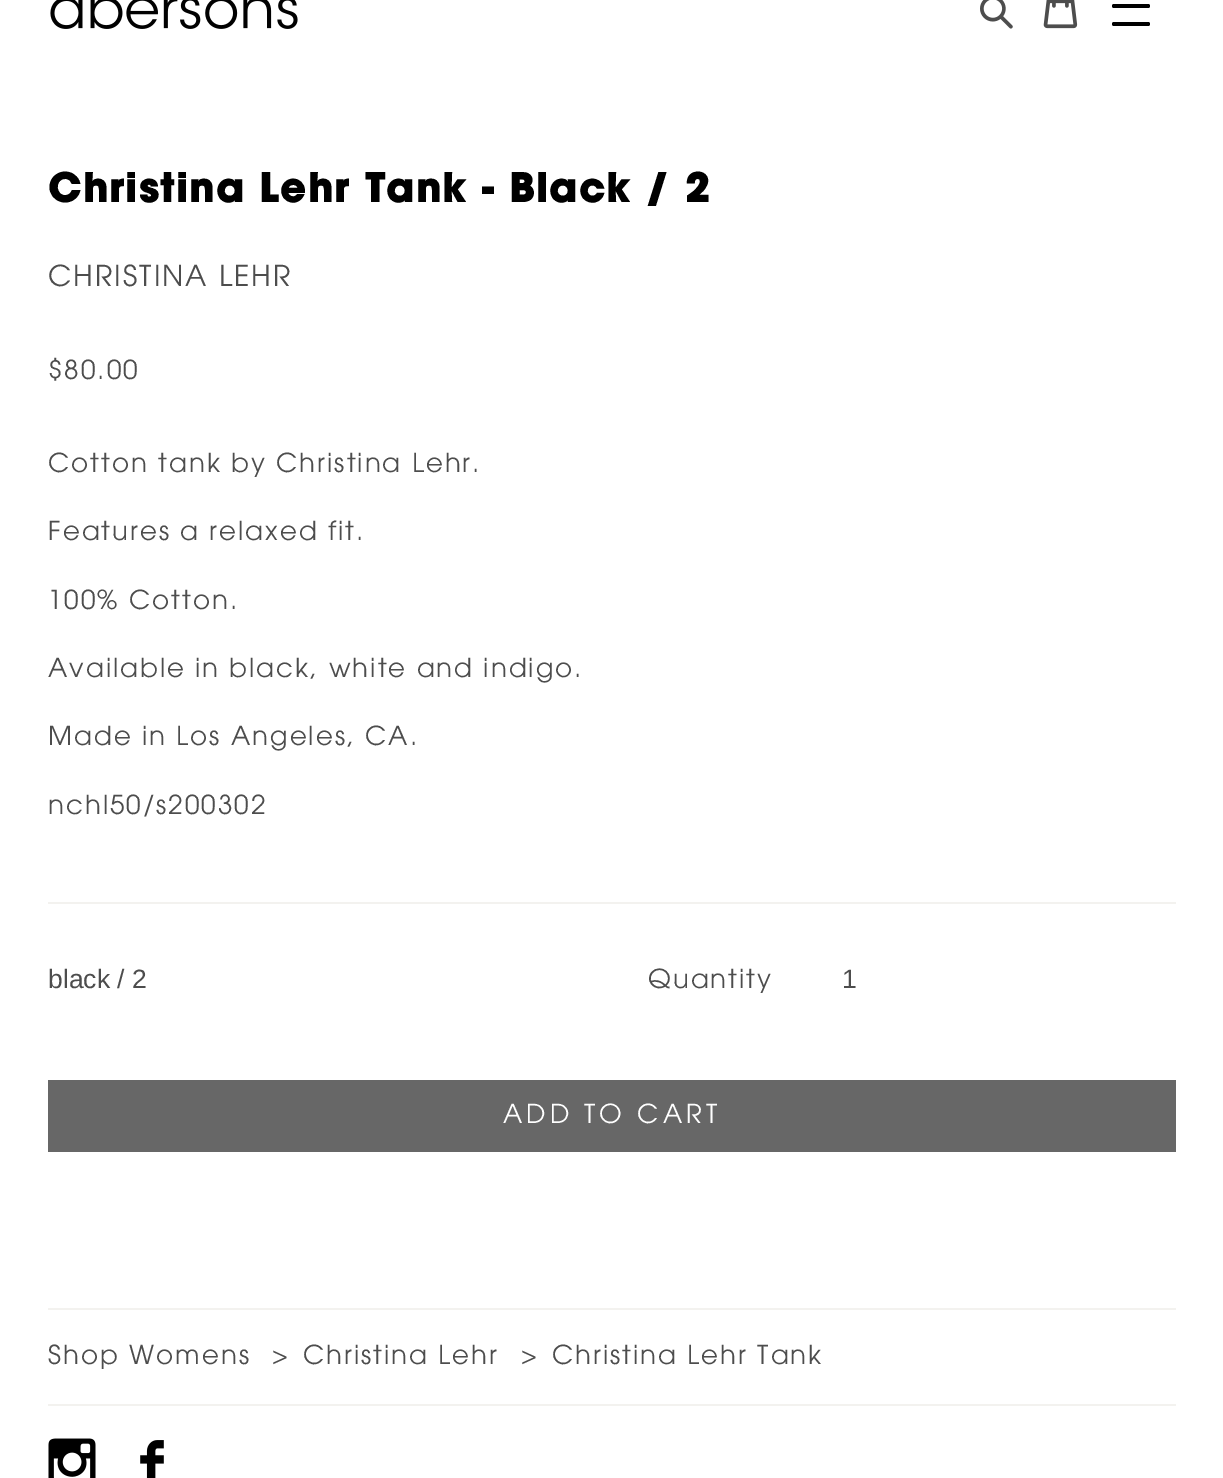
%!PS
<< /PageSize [1223 1478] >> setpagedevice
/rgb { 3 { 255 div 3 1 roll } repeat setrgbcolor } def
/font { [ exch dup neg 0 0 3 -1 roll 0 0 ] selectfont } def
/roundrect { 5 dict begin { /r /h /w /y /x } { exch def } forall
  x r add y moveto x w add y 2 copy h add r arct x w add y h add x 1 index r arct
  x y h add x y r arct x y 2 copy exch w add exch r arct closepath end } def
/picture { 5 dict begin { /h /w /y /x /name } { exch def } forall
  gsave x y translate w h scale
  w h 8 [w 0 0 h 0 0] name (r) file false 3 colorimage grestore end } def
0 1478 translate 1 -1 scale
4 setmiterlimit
255 255 255 rgb
0 0 1223 1478 rectfill
(img/1.rgb) 50 0 248 29 picture
(img/2.rgb) 980 0 33 29 picture
(img/3.rgb) 1043 0 35 29 picture
0 0 0 rgb
1112 22 38 4 2 roundrect fill
1112 4 38 4 2 roundrect fill
[
  [48 902 1128 2 243 242 239]
  [48 1080 1128 72 103 103 103]
  [48 1308 1128 2 243 242 239]
  [48 1404 1128 2 243 242 239]
] { aload pop rgb rectfill } forall
(img/4.rgb) 48 1438 48 40 picture
(img/5.rgb) 140 1440 24 38 picture
/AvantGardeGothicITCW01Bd-Bold 39.1 font
0 0 0 rgb
48 202 moveto 2 0 (Christina Lehr Tank - Black / 2) ashow
/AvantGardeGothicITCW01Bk-Regular 28.75 font
77 77 77 rgb
48 286 moveto 2 0 (CHRISTINA LEHR) ashow
/AvantGardeGothicITCW01Bk-Regular 26.1 font
48 379 moveto 2 0 ($80.00) ashow
48 472 moveto 2 0 (Cotton tank by Christina Lehr.) ashow
48 540 moveto 2 0 (Features a relaxed fit.) ashow
48 609 moveto 2 0 (100% Cotton.) ashow
48 677 moveto 2 0 (Available in black, white and indigo.) ashow
48 745 moveto 2 0 (Made in Los Angeles, CA.) ashow
48 814 moveto 2 0 (nchl50/s200302) ashow
/LiberationSans-Regular 26.5 font
48 988 moveto (black / 2) show
/AvantGardeGothicITCW01Bk-Regular 26.1 font
648 988 moveto 2 0 (Quantity) ashow
/LiberationSans-Regular 26.5 font
842 988 moveto (1) show
/AvantGardeGothicITCW01Bk-Regular 26.1 font
255 255 255 rgb
503 1123 moveto 4 0 (ADD TO CART) ashow
77 77 77 rgb
48 1364 moveto 2 0 (Shop Womens) ashow
272 1364 moveto 2 0 (>) ashow
303 1364 moveto 2 0 (Christina Lehr) ashow
521 1364 moveto 2 0 (>) ashow
552 1364 moveto 2 0 (Christina Lehr Tank) ashow
showpage
